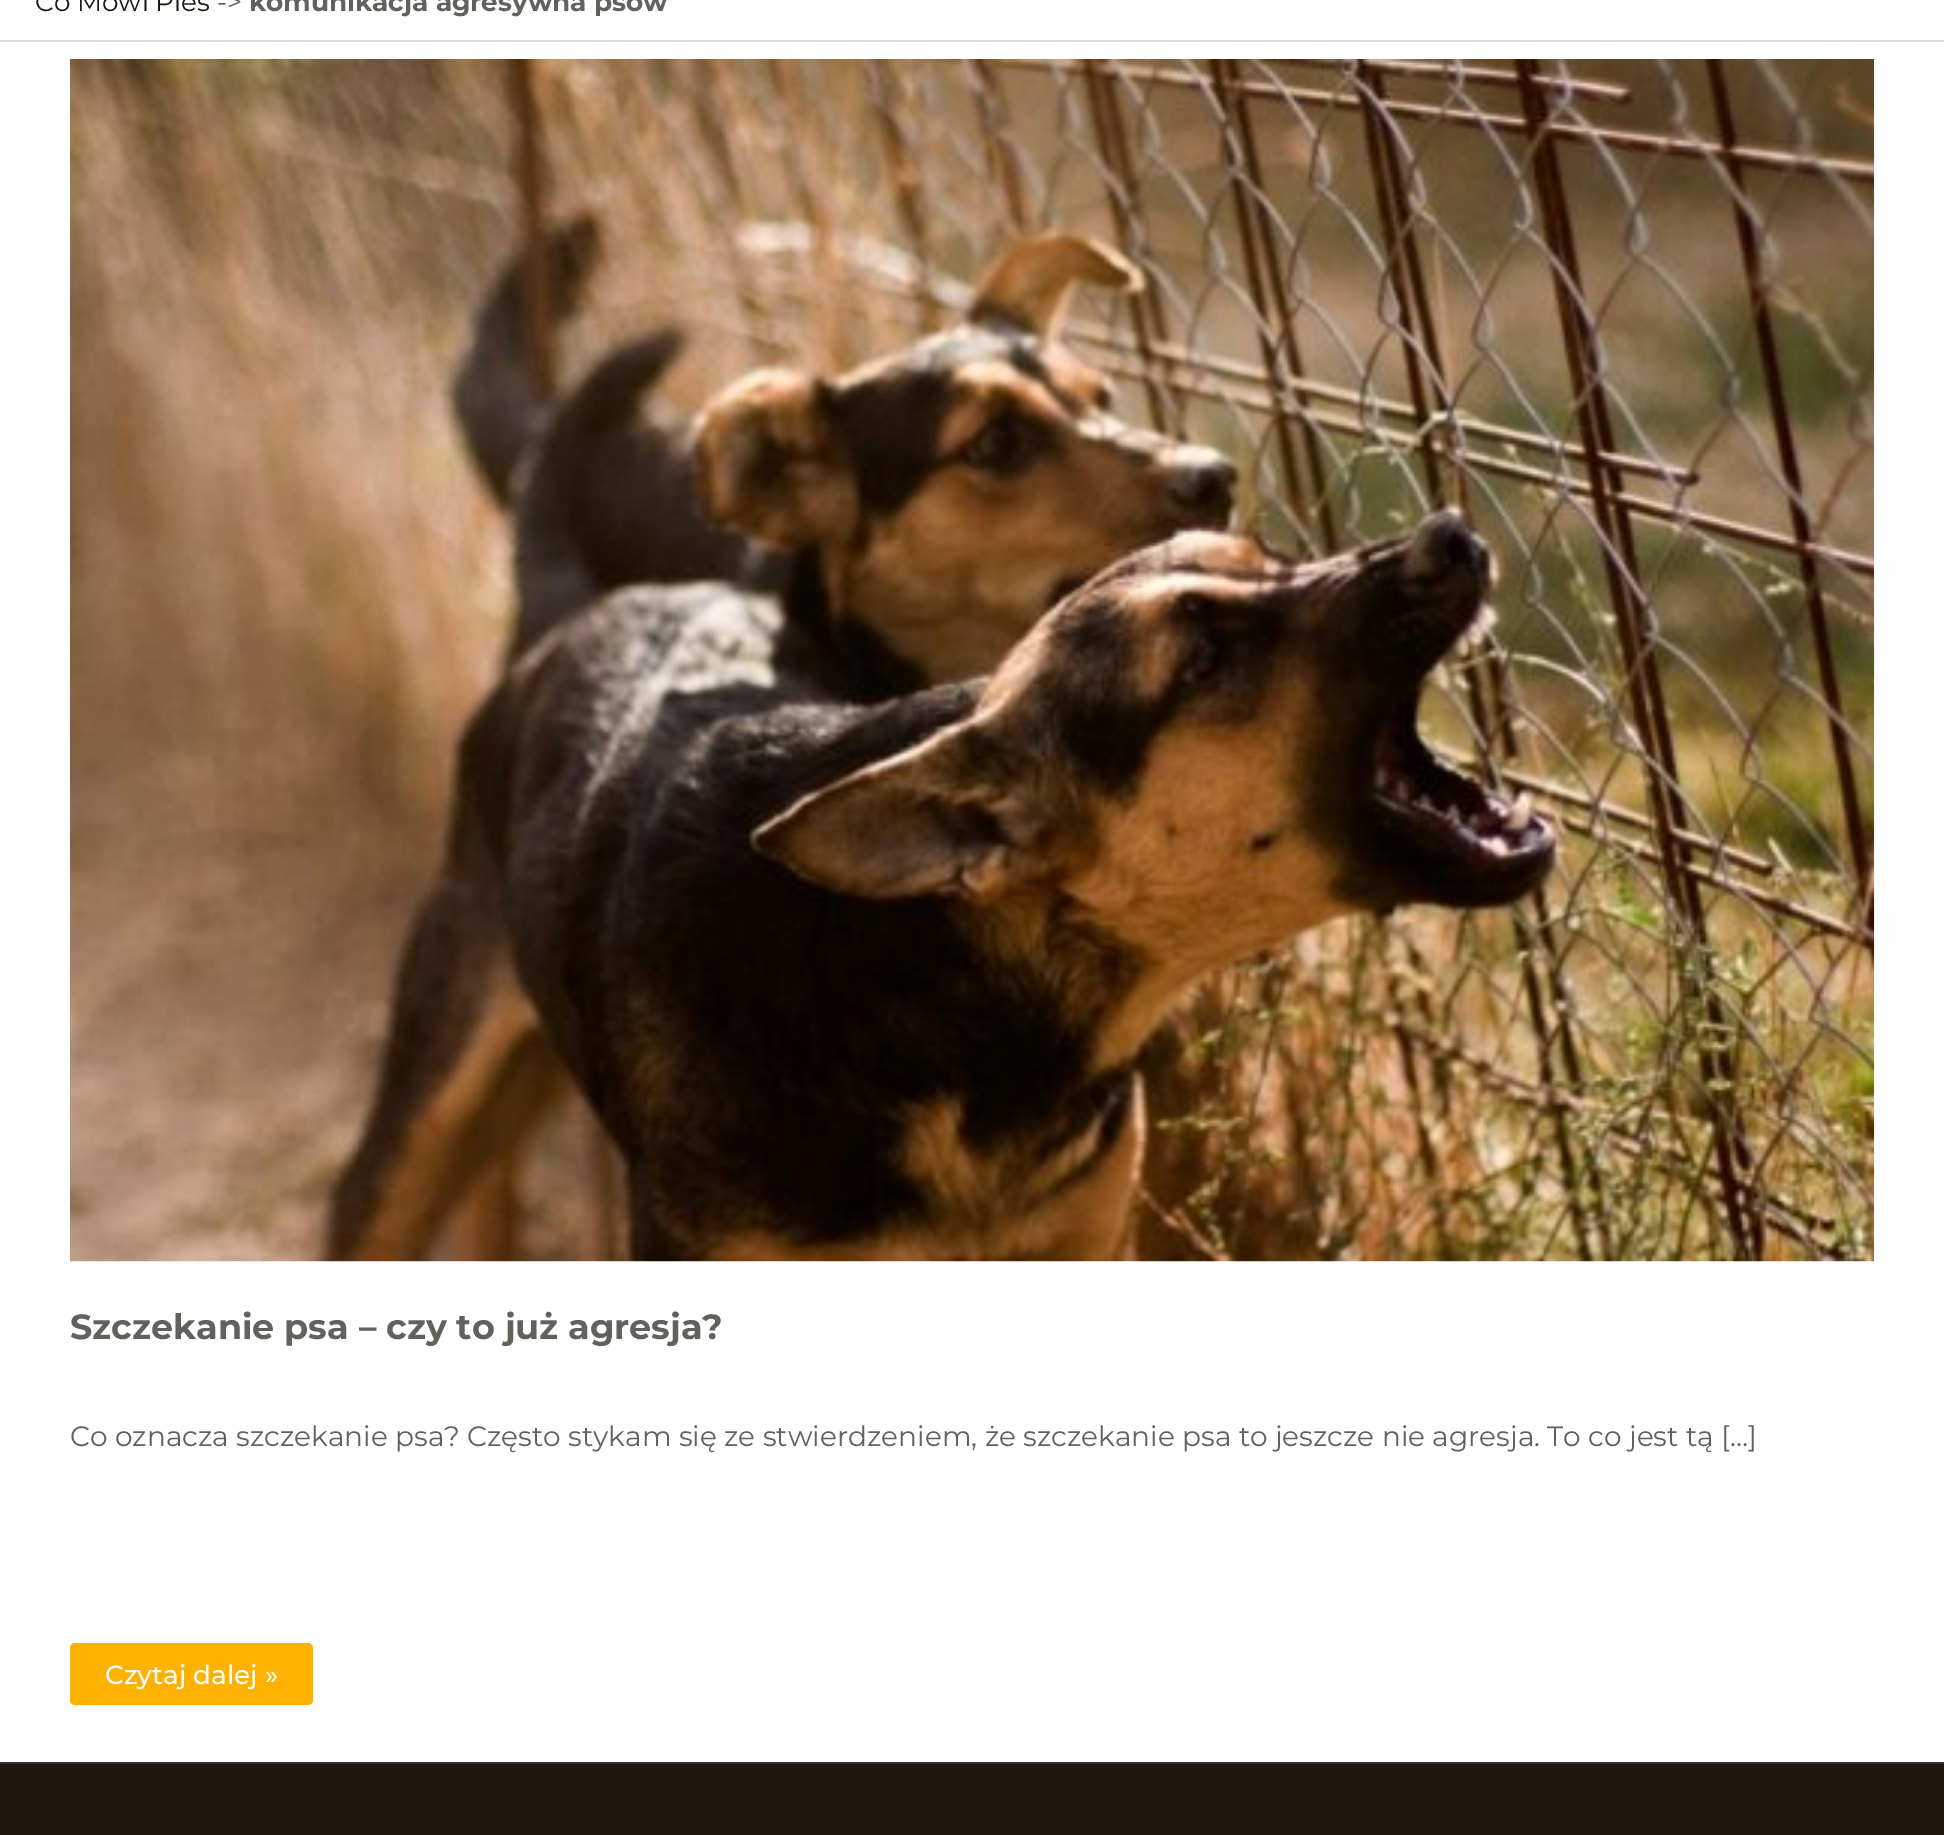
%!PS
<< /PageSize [1944 1835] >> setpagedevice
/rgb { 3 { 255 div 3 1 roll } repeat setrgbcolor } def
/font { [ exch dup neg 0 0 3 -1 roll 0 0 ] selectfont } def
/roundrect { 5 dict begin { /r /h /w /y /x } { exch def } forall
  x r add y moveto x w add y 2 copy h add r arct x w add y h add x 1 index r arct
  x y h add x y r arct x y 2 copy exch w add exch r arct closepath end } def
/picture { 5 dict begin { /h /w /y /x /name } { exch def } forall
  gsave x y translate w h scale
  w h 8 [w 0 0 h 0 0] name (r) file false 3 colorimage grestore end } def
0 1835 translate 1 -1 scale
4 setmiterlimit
255 255 255 rgb
0 0 1944 1835 rectfill
221 221 221 rgb
0 40 1944 2 rectfill
(img/1.rgb) 70 59 1805 1203 picture
255 177 0 rgb
70 1643 243 62 5 roundrect fill
30 24 16 rgb
0 1764 1944 71 rectfill
53 47 40 rgb
0 1762 1944 2 rectfill
/Montserrat-Regular 26.25 font
30 24 16 rgb
35 11 moveto (Co Mówi Pies) show
98 97 92 rgb
217 11 moveto (->) show
/Montserrat-Bold 26.25 font
249 11 moveto (komunikacja agresywna psów) show
/Montserrat-Bold 35 font
70 1339 moveto (Szczekanie psa – czy to już agresja?) show
/Montserrat-Regular 28 font
70 1446 moveto (Co oznacza szczekanie psa? Często stykam się ze stwierdzeniem, że szczekanie psa to jeszcze nie agresja. To co jest tą […]) show
/Montserrat-Medium 26.25 font
255 255 255 rgb
105 1684 moveto (Czytaj dalej ») show
showpage
